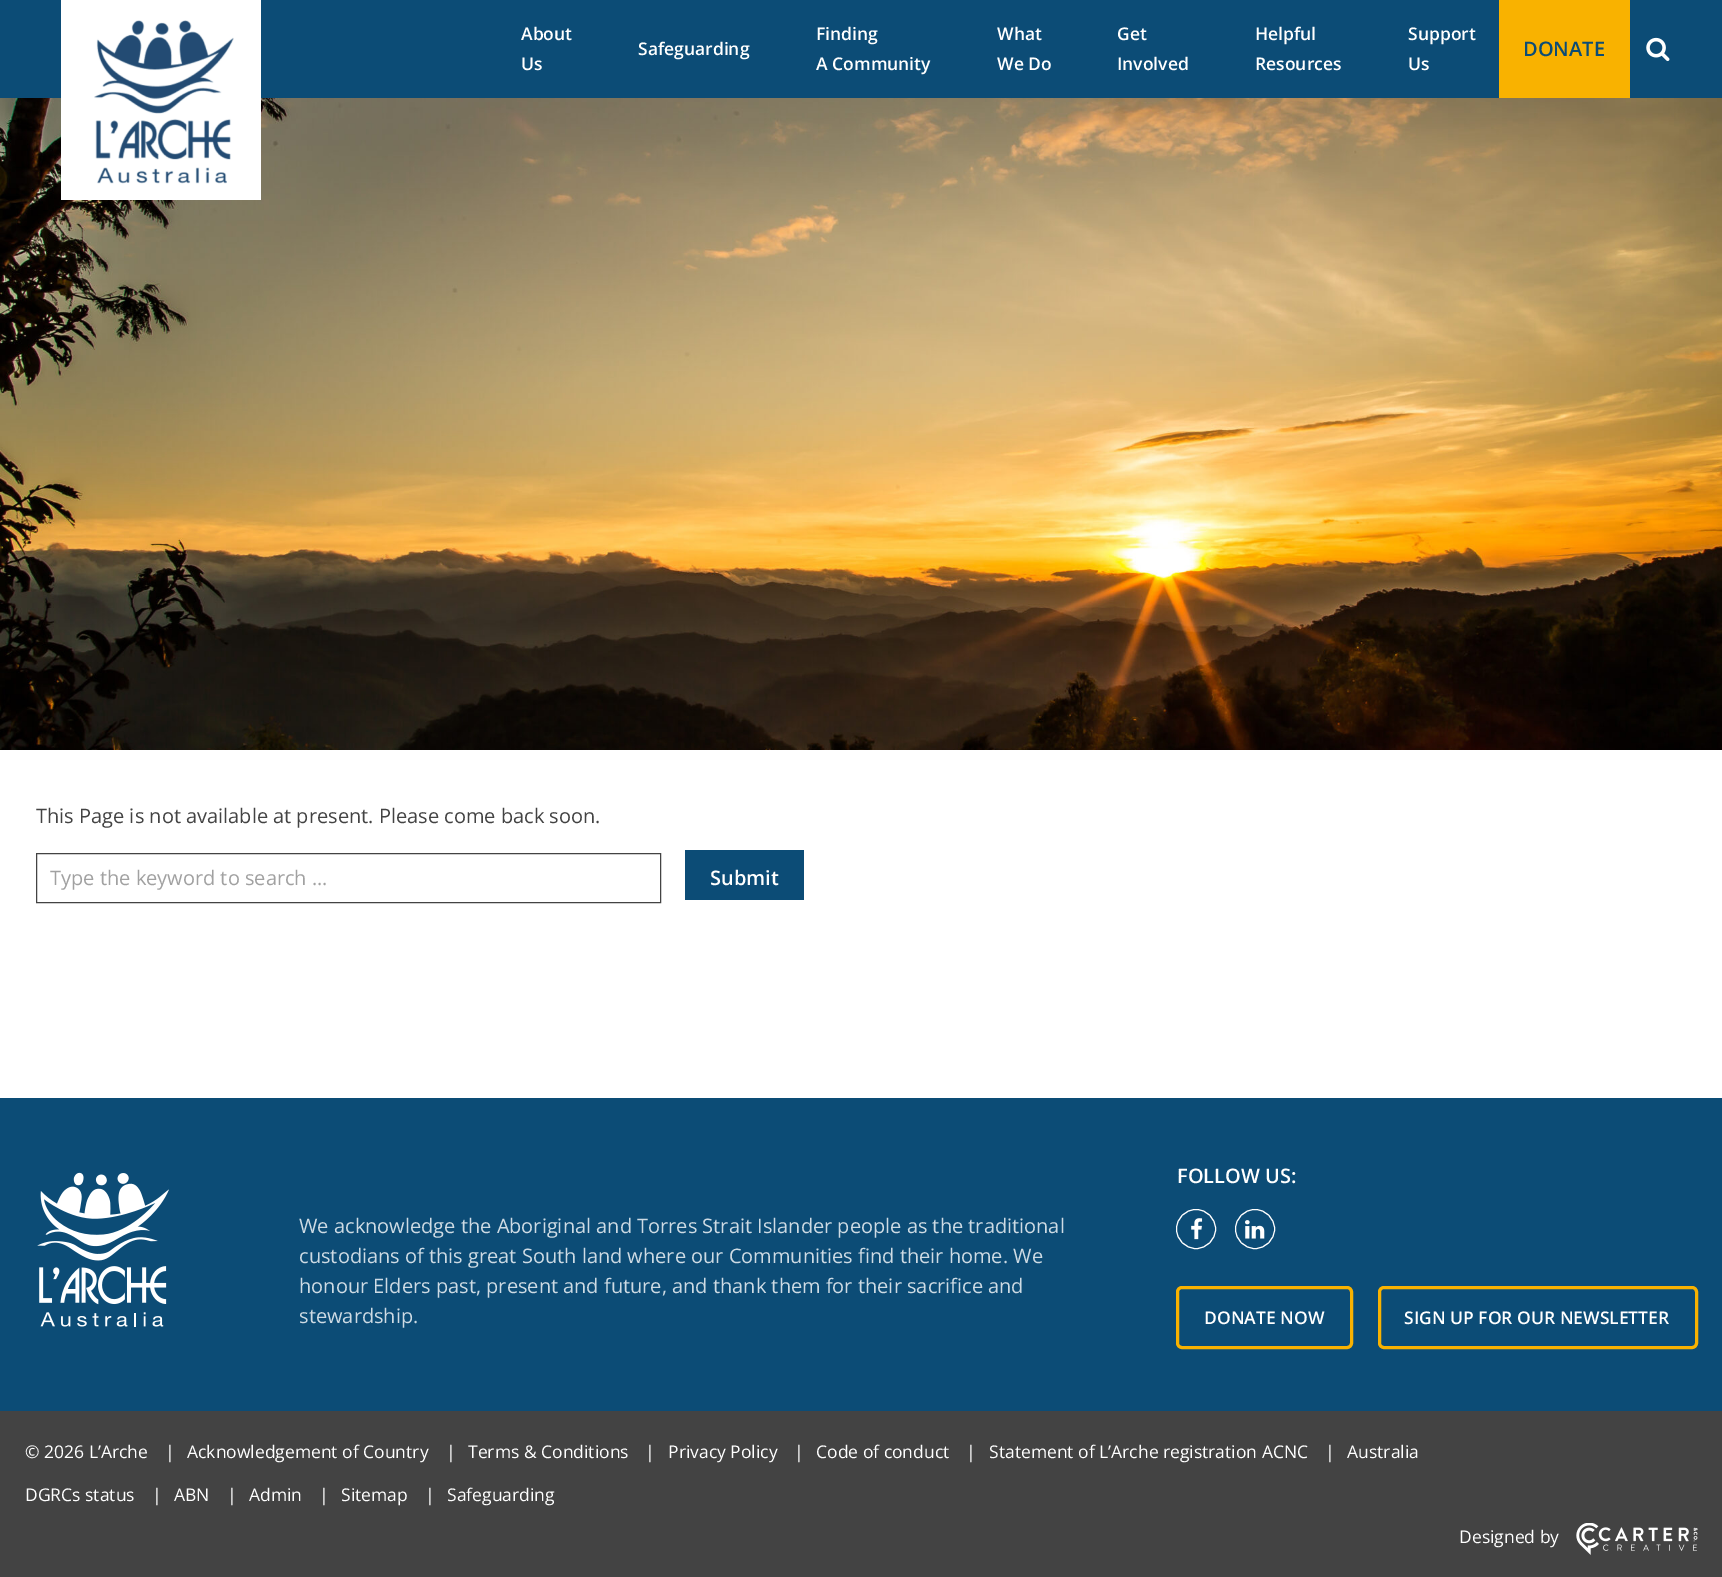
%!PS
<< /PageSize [1722 1577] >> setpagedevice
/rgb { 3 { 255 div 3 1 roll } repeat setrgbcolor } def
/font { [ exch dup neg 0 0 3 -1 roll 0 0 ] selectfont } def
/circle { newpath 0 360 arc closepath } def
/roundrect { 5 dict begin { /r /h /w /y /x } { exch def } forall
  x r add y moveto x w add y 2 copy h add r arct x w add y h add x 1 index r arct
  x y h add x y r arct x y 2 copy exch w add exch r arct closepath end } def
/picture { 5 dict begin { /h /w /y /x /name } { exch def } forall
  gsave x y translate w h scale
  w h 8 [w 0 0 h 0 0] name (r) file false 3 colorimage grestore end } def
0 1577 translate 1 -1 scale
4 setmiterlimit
255 255 255 rgb
0 0 1722 1577 rectfill
12 76 118 rgb
0 0 1722 98 rectfill
(img/3.rgb) 0 98 1722 652 picture
255 255 255 rgb
61 0 200 200 rectfill
(img/1.rgb) 94 20 140 164 picture
249 178 0 rgb
1499 0 131 98 rectfill
(img/2.rgb) 1646 37 24 25 picture
67 67 67 rgb
36.5 853.5 624 49 rectstroke
12 76 118 rgb
685 850 119 50 rectfill
0 1098 1722 313 rectfill
(img/4.rgb) 37 1172 132 155 picture
255 255 255 rgb
1196 1229 19.5 circle stroke
(img/5.rgb) 1191 1218 12 22 picture
1255 1229 19.5 circle stroke
(img/6.rgb) 1245 1220 20 19 picture
249 178 0 rgb
3 setlinewidth
1177.5 1287.5 174 60 4.5 roundrect stroke
1379.5 1287.5 317 60 4.5 roundrect stroke
67 67 67 rgb
0 1411 1722 166 rectfill
(img/7.rgb) 1576 1523 122 32 picture
/OpenSans-SemiBold 17.5 font
255 255 255 rgb
[
  [(About) 521 40]
  [(Us) 521 70]
  [(Safeguarding) 638 55]
  [(Finding) 816 40]
  [(A Community) 816 70]
  [(What) 997 40]
  [(We Do) 997 70]
  [(Get) 1117 40]
  [(Involved) 1117 70]
  [(Helpful) 1255 40]
  [(Resources) 1255 70]
  [(Support) 1408 40]
  [(Us) 1408 70]
] { aload pop moveto show } forall
/OpenSans-SemiBold 20 font
12 76 118 rgb
1523 56 moveto (DONATE) show
/OpenSans-Regular 20 font
67 67 67 rgb
36 823 moveto (This Page is not available at present. Please come back soon.) show
161 161 161 rgb
50 885 moveto (Type the keyword to search ...) show
/OpenSans-SemiBold 20 font
255 255 255 rgb
710 885 moveto (Submit) show
/OpenSans-Regular 20 font
206 219 228 rgb
[
  [(We acknowledge the Aboriginal and Torres Strait Islander people as the traditional) 299 1233]
  [(custodians of this great South land where our Communities find their home. We) 299 1263]
  [(honour Elders past, present and future, and thank them for their sacrifice and) 299 1293]
  [(stewardship.) 299 1323]
] { aload pop moveto show } forall
/OpenSans-SemiBold 20 font
255 255 255 rgb
1177 1183 moveto (FOLLOW US:) show
/OpenSans-SemiBold 17.5 font
1204 1324 moveto (DONATE NOW) show
1404 1324 moveto (SIGN UP FOR OUR NEWSLETTER) show
/OpenSans-Regular 17.5 font
[
  [(© 2026 L’Arche) 25 1458]
  [(|) 165 1458]
  [(Acknowledgement of Country) 187 1458]
  [(|) 446 1458]
  [(Terms & Conditions) 468 1458]
  [(|) 645 1458]
  [(Privacy Policy) 668 1458]
  [(|) 794 1458]
  [(Code of conduct) 816 1458]
  [(|) 966 1458]
  [(Statement of L’Arche registration ACNC) 989 1458]
  [(|) 1325 1458]
  [(Australia) 1347 1458]
  [(DGRCs status) 25 1501]
  [(|) 152 1501]
  [(ABN) 174 1501]
  [(|) 227 1501]
  [(Admin) 249 1501]
  [(|) 319 1501]
  [(Sitemap) 341 1501]
  [(|) 425 1501]
  [(Safeguarding) 447 1501]
  [(Designed by) 1459 1543]
] { aload pop moveto show } forall
showpage
